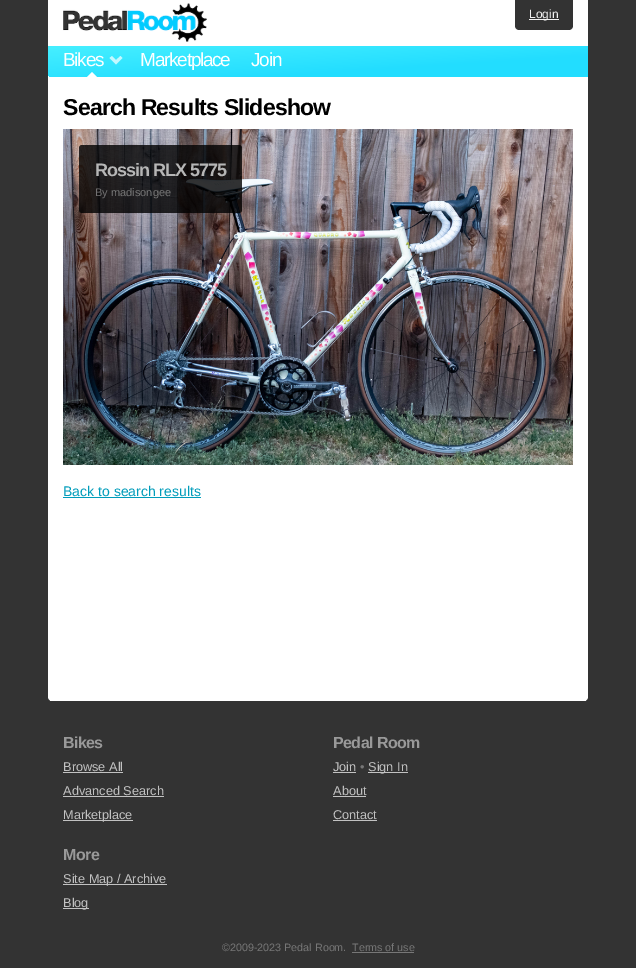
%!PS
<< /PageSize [636 968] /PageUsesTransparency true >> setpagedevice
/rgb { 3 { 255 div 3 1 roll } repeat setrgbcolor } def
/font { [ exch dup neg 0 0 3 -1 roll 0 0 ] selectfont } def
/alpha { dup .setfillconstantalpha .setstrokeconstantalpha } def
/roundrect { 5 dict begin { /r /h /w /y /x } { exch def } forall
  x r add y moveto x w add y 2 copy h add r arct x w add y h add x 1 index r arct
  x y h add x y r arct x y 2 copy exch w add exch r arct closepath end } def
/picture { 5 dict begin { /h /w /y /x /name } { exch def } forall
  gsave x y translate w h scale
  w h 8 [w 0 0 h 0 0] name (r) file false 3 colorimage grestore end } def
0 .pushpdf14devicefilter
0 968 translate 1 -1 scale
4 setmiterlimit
51 51 51 rgb
0 0 636 968 rectfill
255 255 255 rgb
48 0 540 90 rectfill
(img/1.rgb) 63 3 144 39 picture
51 51 51 rgb
515 0 moveto 573 0 lineto 573 26 lineto 573 28 571 30 569 30 curveto 519 30 lineto 517 30 515 28 515 26 curveto closepath fill
242 242 242 rgb
529 19 30 1 rectfill
gsave 48 46 moveto 588 46 lineto 588 77 lineto 52 77 lineto 50 77 48 75 48 73 curveto closepath clip newpath
<< /ShadingType 2 /ColorSpace /DeviceRGB /Coords [316 31 320 92] /Extend [true true] /Function << /FunctionType 3 /Domain [0 1] /Functions [<< /FunctionType 2 /Domain [0 1] /C0 [0.267 0.933 1] /C1 [0.133 0.867 1] /N 1 >> << /FunctionType 2 /Domain [0 1] /C0 [0.133 0.867 1] /C1 [0.133 0.867 1] /N 1 >>] /Bounds [0.7] /Encode [0 1 0 1] >> >> shfill grestore
0.7 alpha
255 255 255 rgb
122.5 58 moveto 116 64.5 lineto 116 60 lineto 120.5 56 lineto closepath 116 64.5 moveto 109.5 58 lineto 112 56 lineto 116 60 lineto closepath fill
1 alpha
97 77 moveto 87 77 lineto 92 72 lineto closepath fill
48 90 moveto 588 90 lineto 588 697 lineto 588 699 586 701 584 701 curveto 52 701 lineto 50 701 48 699 48 697 curveto closepath fill
50 700 536 1 rectfill
(img/2.rgb) 63 129 510 336 picture
0.8 alpha
0 0 0 rgb
79 145 163 68 3 roundrect fill
1 alpha
[
  [63 497 138 1 0 156 186]
  [63 772 60 1 194 194 194]
  [63 796 101 1 194 194 194]
  [63 820 70 1 194 194 194]
  [333 772 23 1 194 194 194]
  [368 772 40 1 194 194 194]
  [333 796 33 1 194 194 194]
  [333 820 44 1 194 194 194]
  [63 884 104 1 194 194 194]
  [63 908 26 1 194 194 194]
  [352 952 62 1 119 119 119]
] { aload pop rgb rectfill } forall
/LiberationSans-Regular 12 font
242 242 242 rgb
529 18 moveto (Login) show
/LiberationSans-Regular 19 font
255 255 255 rgb
63 66 moveto -1.25 0 (Bikes) ashow
140 66 moveto -1.25 0 (Marketplace) ashow
251 66 moveto -1.25 0 (Join) ashow
/LiberationSans-Bold 23 font
0 0 0 rgb
63 115 moveto -0.8 0 (Search Results Slideshow) ashow
/LiberationSans-Bold 18 font
182 182 182 rgb
95 176 moveto -1 0 (Rossin RLX 5775) ashow
/LiberationSans-Regular 11 font
114 113 114 rgb
95 196 moveto (By) show
119 119 119 rgb
111 196 moveto (madisongee) show
/LiberationSans-Regular 14 font
0 156 186 rgb
63 496 moveto (Back to search results) show
/LiberationSans-Bold 16 font
153 153 153 rgb
63 748 moveto -0.6 0 (Bikes) ashow
/LiberationSans-Regular 12.75 font
194 194 194 rgb
[
  [(Browse All) 63 771]
  [(Advanced Search) 63 795]
  [(Marketplace) 63 819]
] { aload pop moveto show } forall
/LiberationSans-Bold 16 font
153 153 153 rgb
333 748 moveto -0.6 0 (Pedal Room) ashow
/LiberationSans-Regular 12.75 font
194 194 194 rgb
333 771 moveto (Join) show
119 119 119 rgb
360 771 moveto (•) show
194 194 194 rgb
[
  [(Sign In) 368 771]
  [(About) 333 795]
  [(Contact) 333 819]
] { aload pop moveto show } forall
/LiberationSans-Bold 16 font
153 153 153 rgb
63 860 moveto -0.6 0 (More) ashow
/LiberationSans-Regular 12.75 font
194 194 194 rgb
63 883 moveto (Site Map / Archive) show
63 907 moveto (Blog) show
/LiberationSans-Regular 10.75 font
119 119 119 rgb
222 951 moveto (©2009-2023 Pedal Room.) show
352 951 moveto (Terms of use) show
.poppdf14devicefilter showpage
